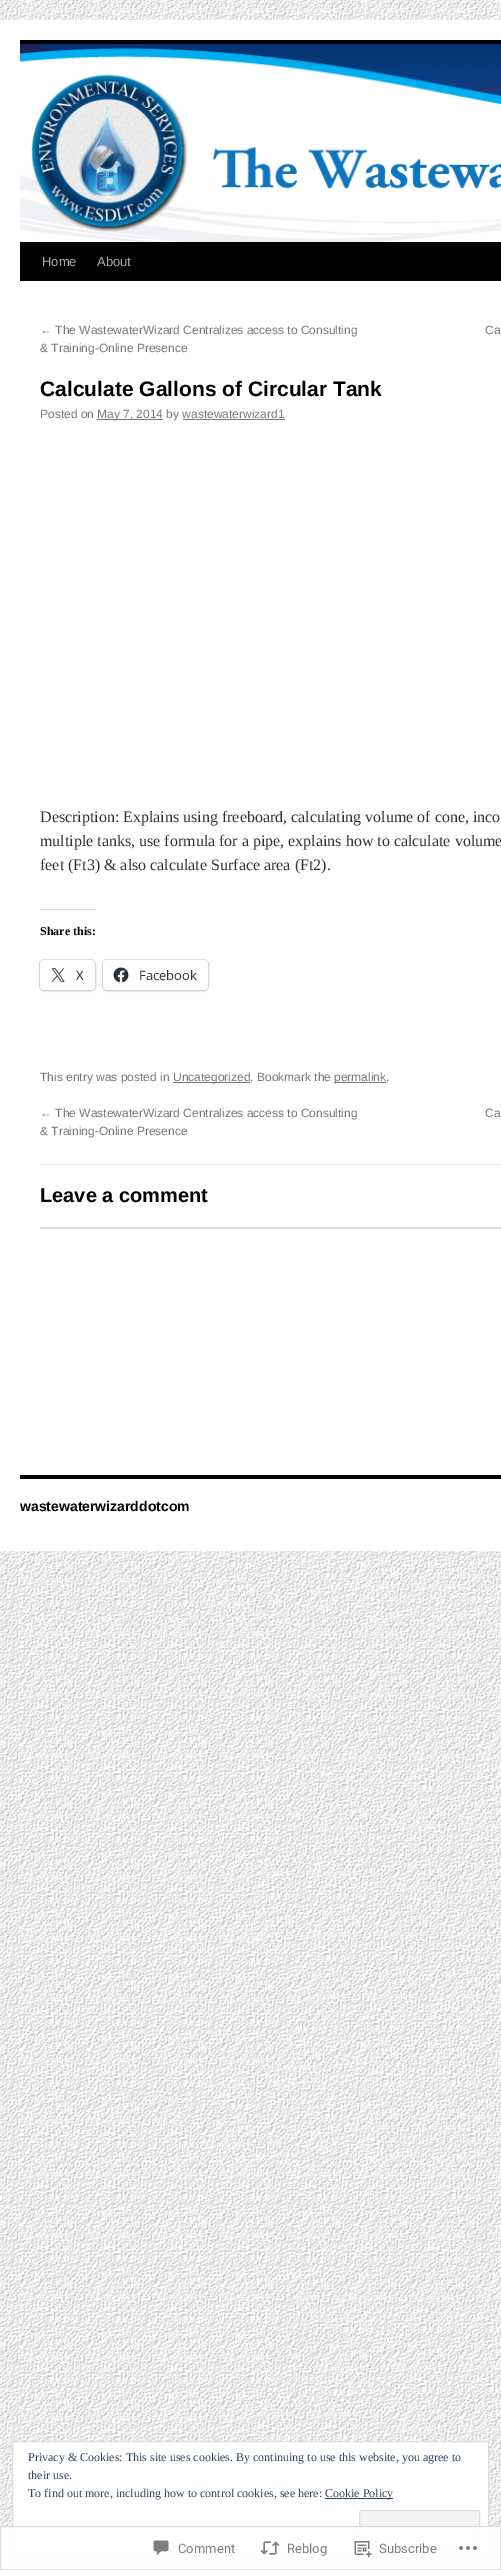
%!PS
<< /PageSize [501 2570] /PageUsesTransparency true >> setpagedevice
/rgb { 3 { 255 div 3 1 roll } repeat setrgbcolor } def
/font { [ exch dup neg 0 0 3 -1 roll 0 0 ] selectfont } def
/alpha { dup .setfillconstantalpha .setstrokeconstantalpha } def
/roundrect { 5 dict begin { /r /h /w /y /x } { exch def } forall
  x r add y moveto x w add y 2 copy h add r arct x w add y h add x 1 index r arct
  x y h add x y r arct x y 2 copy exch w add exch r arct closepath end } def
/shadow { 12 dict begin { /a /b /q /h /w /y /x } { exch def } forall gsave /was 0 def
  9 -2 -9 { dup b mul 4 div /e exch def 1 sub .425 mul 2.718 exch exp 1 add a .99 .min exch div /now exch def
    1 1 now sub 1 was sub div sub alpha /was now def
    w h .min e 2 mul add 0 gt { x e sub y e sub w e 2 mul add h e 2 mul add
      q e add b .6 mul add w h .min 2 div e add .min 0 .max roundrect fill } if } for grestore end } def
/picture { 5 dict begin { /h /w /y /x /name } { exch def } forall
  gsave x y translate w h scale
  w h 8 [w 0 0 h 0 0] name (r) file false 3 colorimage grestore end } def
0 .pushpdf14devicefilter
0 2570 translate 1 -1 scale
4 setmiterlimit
255 255 255 rgb
0 0 501 2570 rectfill
(img/1.rgb) 0 0 501 2570 picture
[
  [0 20 501 1531 255 255 255]
  [20 40 481 4 0 0 0]
  [20 242 481 39 0 0 0]
] { aload pop rgb rectfill } forall
(img/2.rgb) 20 44 481 198 picture
[
  [97 419 66 1 119 119 119]
  [183 419 102 1 119 119 119]
  [40 909 56 1 220 220 222]
] { aload pop rgb rectfill } forall
224 224 224 rgb
39.5 959.5 56 31 4.5 roundrect stroke
0 0 0 rgb
40 961 55 30 4 1 0.12 shadow
255 255 255 rgb
40 960 55 30 4 roundrect fill
(img/3.rgb) 51 968 14 14 picture
224 224 224 rgb
102.5 959.5 106 31 4.5 roundrect stroke
0 0 0 rgb
103 961 105 30 4 1 0.12 shadow
255 255 255 rgb
103 960 105 30 4 roundrect fill
(img/4.rgb) 113 967 16 16 picture
[
  [173 1082 77 1 119 119 119]
  [334 1082 52 1 119 119 119]
  [40 1164 461 1 231 231 231]
  [40 1227 461 2 220 220 222]
  [20 1475 481 4 0 0 0]
] { aload pop rgb rectfill } forall
255 255 255 rgb
12.5 2441.5 moveto 488.5 2441.5 lineto 488.5 2557.5 lineto 12.5 2557.5 lineto closepath gsave fill grestore
222 222 222 rgb
stroke
46 68 103 rgb
325 2498 68 1 rectfill
243 243 243 rgb
359.5 2510.5 120 38 2.5 roundrect gsave fill grestore
222 222 222 rgb
stroke
0.98 alpha
255 255 255 rgb
0 2526 501 44 rectfill
220 220 222 rgb
0.5 2526.5 500 43 rectstroke
1 alpha
(img/5.rgb) 153 2540 16 16 picture
(img/6.rgb) 260 2541 20 14 picture
(img/7.rgb) 354 2541 18 17 picture
(img/8.rgb) 459 2546 18 4 picture
/LiberationSans-Regular 13 font
170 170 170 rgb
42 266 moveto (Home) show
97 266 moveto (About) show
/LiberationSans-Regular 12 font
119 119 119 rgb
[
  [(← The WastewaterWizard Centralizes access to Consulting) 40 334]
  [(& Training-Online Presence) 40 352]
  [(Ca) 485 334]
] { aload pop moveto show } forall
/LiberationSans-Bold 21 font
0 0 0 rgb
40 396 moveto (Calculate Gallons of Circular Tank) show
/LiberationSans-Regular 12 font
119 119 119 rgb
40 418 moveto (Posted on) show
97 418 moveto (May 7, 2014 by wastewaterwizard1) show
/LiberationSerif-Regular 16 font
51 51 51 rgb
[
  [(Description: Explains using freeboard, calculating volume of cone, inco) 40 822]
  [(multiple tanks, use formula for a pipe, explains how to calculate volume) 40 846]
  [(feet \(Ft3\) & also calculate Surface area \(Ft2\).) 40 870]
] { aload pop moveto show } forall
/LiberationSerif-Bold 12 font
0 0 0 rgb
40 935 moveto (Share this:) show
/OpenSans-Regular 13 font
44 51 56 rgb
76 980 moveto (X) show
139 980 moveto (Facebook) show
/LiberationSans-Regular 12 font
119 119 119 rgb
[
  [(This entry was posted in) 40 1081]
  [(Uncategorized. Bookmark the) 173 1081]
  [(permalink.) 334 1081]
  [(← The WastewaterWizard Centralizes access to Consulting) 40 1117]
  [(& Training-Online Presence) 40 1135]
  [(Ca) 485 1117]
] { aload pop moveto show } forall
/LiberationSans-Bold 20 font
0 0 0 rgb
40 1202 moveto (Leave a comment) show
/LiberationSans-Bold 14 font
20 1511 moveto (wastewaterwizarddotcom) show
/LiberationSerif-Regular 12 font
46 68 103 rgb
[
  [(Privacy & Cookies: This site uses cookies. By continuing to use this website, you agree to) 28 2461]
  [(their use.) 28 2479]
  [(To find out more, including how to control cookies, see here:) 28 2497]
  [(Cookie Policy) 325 2497]
] { aload pop moveto show } forall
/Roboto-Regular 13 font
123 127 133 rgb
[
  [(Comment) 178 2553]
  [(Reblog) 287 2553]
  [(Subscribe) 379 2553]
] { aload pop moveto show } forall
.poppdf14devicefilter showpage
